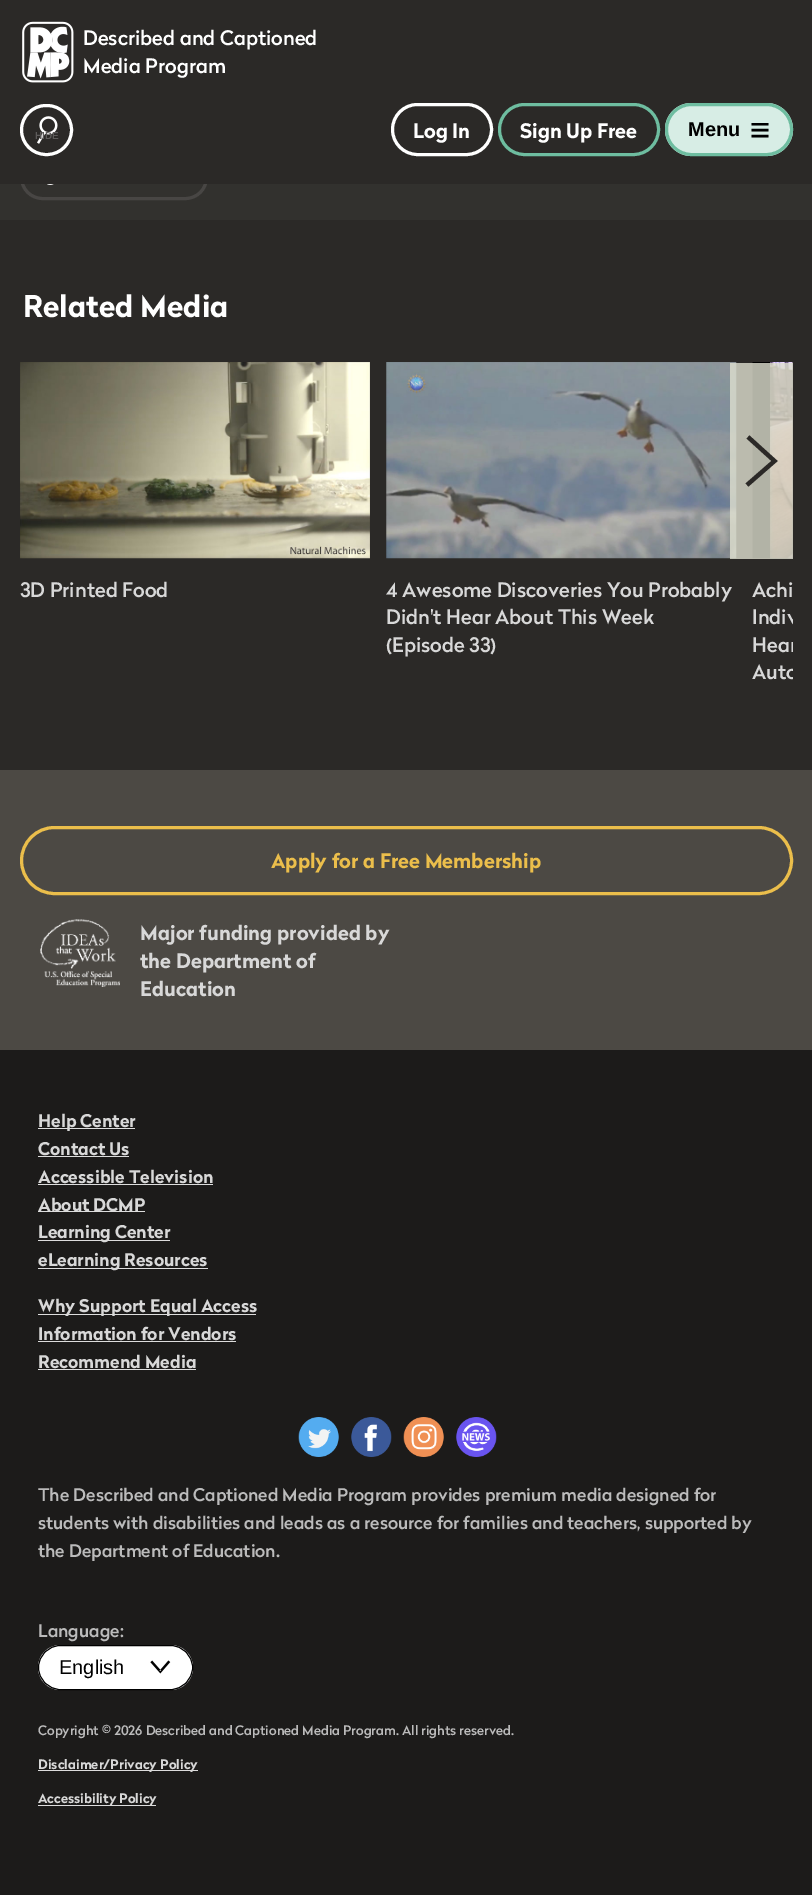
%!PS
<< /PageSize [812 1895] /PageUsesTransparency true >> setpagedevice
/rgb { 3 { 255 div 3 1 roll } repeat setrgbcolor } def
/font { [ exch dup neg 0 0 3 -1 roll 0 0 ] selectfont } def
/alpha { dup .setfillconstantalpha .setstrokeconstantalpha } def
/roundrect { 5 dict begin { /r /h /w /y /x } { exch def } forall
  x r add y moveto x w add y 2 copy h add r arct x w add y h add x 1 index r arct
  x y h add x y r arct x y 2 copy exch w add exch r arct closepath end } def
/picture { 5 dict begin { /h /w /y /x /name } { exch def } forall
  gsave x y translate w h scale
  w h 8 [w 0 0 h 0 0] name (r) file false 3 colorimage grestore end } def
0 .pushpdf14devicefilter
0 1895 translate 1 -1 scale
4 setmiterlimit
50 49 46 rgb
0 0 812 1895 rectfill
72 70 68 rgb
3 setlinewidth
21.5 156.5 185 42 21 roundrect stroke
43 41 39 rgb
0 0 812 184 rectfill
(img/1.rgb) 22 21 52 62 picture
(img/2.rgb) 37 116 21 28 picture
255 255 255 rgb
21.5 105.5 50 49 24.5 roundrect stroke
392.5 104.5 99 50 25 roundrect stroke
110 189 160 rgb
499.5 104.5 159 50 25 roundrect stroke
215 237 229 rgb
665 103 128 53 26.5 roundrect fill
gsave
751 123 18 15 rectclip
0 0 0 rgb
2.5 setlinewidth
751.5 124 moveto 768.5 124 lineto 751.5 130 moveto 768.5 130 lineto 751.5 136 moveto 768.5 136 lineto stroke
grestore
110 189 160 rgb
666.5 104.5 125 50 25 roundrect stroke
(img/3.rgb) 47 184 7 1 picture
43 41 39 rgb
0 220 812 550 rectfill
(img/5.rgb) 386 362 351 197 picture
(img/6.rgb) 752 362 41 197 picture
0.8 alpha
223 224 208 rgb
730 363 63 196 rectfill
1 alpha
43 41 39 rgb
4.2 setlinewidth
747 485 moveto 774.5 461 lineto 748 437 lineto stroke
(img/4.rgb) 20 362 350 197 picture
76 73 68 rgb
0 770 812 280 rectfill
235 190 75 rgb
3 setlinewidth
21.5 827.5 770 66 33 roundrect stroke
(img/7.rgb) 40 919 80 68 picture
[
  [0 1050 812 845 28 27 26]
  [38 1128 97 1 221 221 221]
  [38 1156 91 1 221 221 221]
  [38 1184 175 1 221 221 221]
  [38 1211 107 1 221 221 221]
  [38 1240 132 1 221 221 221]
  [38 1268 170 1 221 221 221]
  [38 1314 218 1 221 221 221]
  [38 1341 198 1 221 221 221]
  [38 1369 158 1 221 221 221]
] { aload pop rgb rectfill } forall
(img/8.rgb) 298 1417 41 40 picture
(img/9.rgb) 351 1417 41 40 picture
(img/10.rgb) 403 1417 41 40 picture
(img/11.rgb) 456 1417 41 40 picture
255 255 255 rgb
38 1645 155 45 22.5 roundrect fill
(img/12.rgb) 150 1660 21 14 picture
0 0 0 rgb
1 setlinewidth
38.5 1645.5 154 44 22 roundrect stroke
221 221 221 rgb
38 1770 160 1 rectfill
38 1805 118 1 rectfill
/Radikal-Medium 20 font
255 255 255 rgb
83 45 moveto (Described and Captioned) show
83 73 moveto (Media Program) show
/LiberationSans-Bold 10 font
93 91 90 rgb
35 139 moveto (HIDE) show
/Radikal-Bold 20 font
255 255 255 rgb
413 138 moveto (Log In) show
520 138 moveto (Sign Up Free) show
/LiberationSans-Bold 20 font
0 0 0 rgb
688 136 moveto (Menu) show
/Radikal-Bold 30 font
255 255 255 rgb
23 317 moveto (Related Media) show
/Radikal-Medium 20 font
216 216 216 rgb
[
  [(3D Printed Food) 20 597]
  [(4 Awesome Discoveries You Probably) 386 597]
  [(Didn't Hear About This Week) 386 624]
  [(\(Episode 33\)) 386 652]
  [(Achi) 752 597]
] { aload pop moveto show } forall
gsave
20 353 773 352 rectclip
[
  [(Indiv) 752 624]
  [(Hear) 752 652]
  [(Auto) 752 679]
] { aload pop moveto show } forall
grestore
/Radikal-Bold 20 font
235 190 75 rgb
271 868 moveto (Apply for a Free Membership) show
216 216 216 rgb
[
  [(Major funding provided by) 140 940]
  [(the Department of) 140 968]
  [(Education) 140 996]
] { aload pop moveto show } forall
/Radikal-Bold 17.5 font
[
  [(Help Center) 38 1127]
  [(Contact Us) 38 1155]
  [(Accessible Television) 38 1183]
  [(About DCMP) 38 1211]
  [(Learning Center) 38 1238]
  [(eLearning Resources) 38 1266]
  [(Why Support Equal Access) 38 1312]
  [(Information for Vendors) 38 1340]
  [(Recommend Media) 38 1368]
] { aload pop moveto show } forall
/Radikal-Medium 17.5 font
187 187 187 rgb
[
  [(The Described and Captioned Media Program provides premium media designed for) 38 1501]
  [(students with disabilities and leads as a resource for families and teachers, supported by) 38 1529]
  [(the Department of Education.) 38 1557]
  [(Language:) 38 1637]
] { aload pop moveto show } forall
/LiberationSans-Regular 20 font
0 0 0 rgb
59 1674 moveto (English) show
/Radikal-Medium 13.1 font
187 187 187 rgb
38 1735 moveto (Copyright © 2026 Described and Captioned Media Program. All rights reserved.) show
/Radikal-Bold 13.1 font
216 216 216 rgb
38 1769 moveto (Disclaimer/Privacy Policy) show
38 1803 moveto (Accessibility Policy) show
.poppdf14devicefilter showpage
